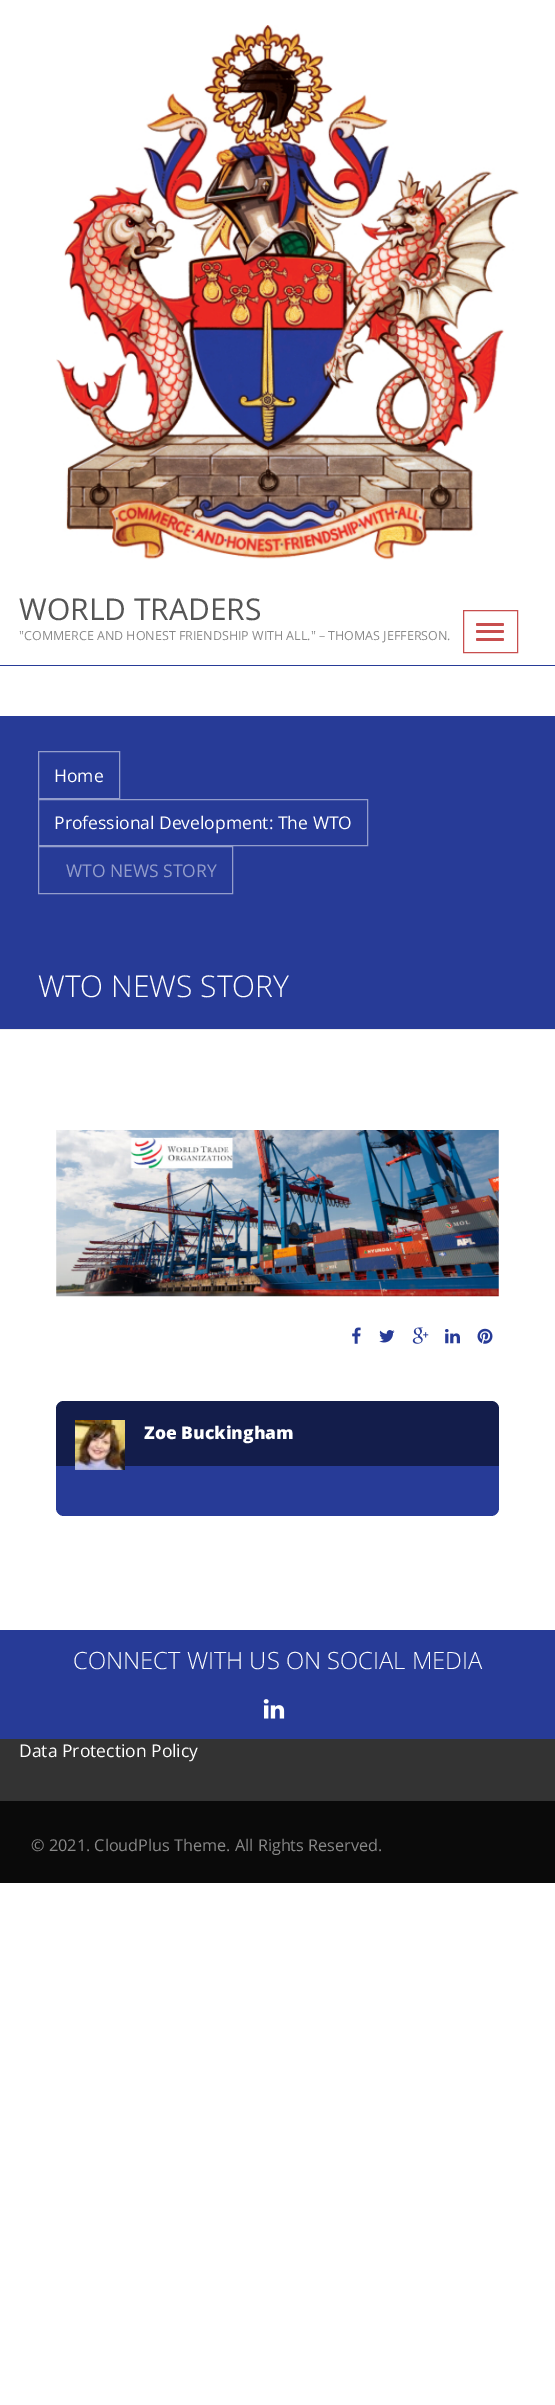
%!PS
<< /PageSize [555 2405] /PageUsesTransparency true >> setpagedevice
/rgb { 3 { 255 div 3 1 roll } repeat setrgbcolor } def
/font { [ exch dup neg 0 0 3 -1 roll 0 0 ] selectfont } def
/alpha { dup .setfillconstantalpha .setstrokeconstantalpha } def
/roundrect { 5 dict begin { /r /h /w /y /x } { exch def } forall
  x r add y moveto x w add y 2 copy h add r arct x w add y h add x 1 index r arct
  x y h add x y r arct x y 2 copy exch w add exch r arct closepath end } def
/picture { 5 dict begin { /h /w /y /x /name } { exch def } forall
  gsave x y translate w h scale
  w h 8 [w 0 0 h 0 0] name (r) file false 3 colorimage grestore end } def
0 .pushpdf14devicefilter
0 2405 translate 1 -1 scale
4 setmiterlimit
255 255 255 rgb
0 0 555 2405 rectfill
39 59 151 rgb
0 665 555 1 rectfill
(img/1.rgb) 56 25 464 535 picture
200 78 78 rgb
463.5 610.5 54 42 rectstroke
476 623 28 3 1.5 roundrect fill
476 630 28 3 1.5 roundrect fill
476 638 28 3 1.5 roundrect fill
39 59 151 rgb
0 716 555 313 rectfill
238 238 238 rgb
0 1029 555 1 rectfill
147 157 203 rgb
38.5 751.5 81 47 rectstroke
38.5 799.5 329 46 rectstroke
38.5 846.5 194 47 rectstroke
(img/2.rgb) 56 1130 443 167 picture
(img/3.rgb) 352 1327 9 17 picture
(img/4.rgb) 379 1330 16 13 picture
(img/5.rgb) 412 1327 17 17 picture
(img/6.rgb) 445 1329 15 15 picture
(img/7.rgb) 477 1328 16 16 picture
39 59 151 rgb
56 1401 443 115 8 roundrect fill
0.5 alpha
0 0 0 rgb
64 1401 moveto 491 1401 lineto 495.5 1401 499 1404.5 499 1409 curveto 499 1466 lineto 56 1466 lineto 56 1409 lineto 56 1404.5 59.5 1401 64 1401 curveto closepath fill
1 alpha
(img/8.rgb) 75 1420 50 50 picture
51 51 51 rgb
0 1739 555 62 rectfill
39 59 151 rgb
0 1630 555 109 rectfill
(img/9.rgb) 263 1699 22 20 picture
10 10 10 rgb
0 1801 555 82 rectfill
/OpenSans-Regular 30 font
85 85 85 rgb
19 620 moveto (WORLD TRADERS) show
/OpenSans-Regular 12.5 font
136 136 136 rgb
19 640 moveto ("COMMERCE AND HONEST FRIENDSHIP WITH ALL." – THOMAS JEFFERSON.) show
/OpenSans-Regular 17.5 font
255 255 255 rgb
54 782 moveto (Home) show
54 829 moveto (Professional Development: The WTO) show
147 157 203 rgb
66 877 moveto (WTO NEWS STORY) show
/OpenSans-Light 30 font
255 255 255 rgb
38 997 moveto (WTO NEWS STORY) show
/OpenSans-ExtraBold 17.5 font
144 1439 moveto (Zoe Buckingham) show
/OpenSans-Light 23.75 font
73 1669 moveto (CONNECT WITH US ON SOCIAL MEDIA) show
/OpenSans-Regular 17.5 font
19 1757 moveto (Data Protection Policy) show
/OpenSans-Regular 16.25 font
136 136 136 rgb
31 1851 moveto (© 2021. CloudPlus Theme. All Rights Reserved.) show
.poppdf14devicefilter showpage
